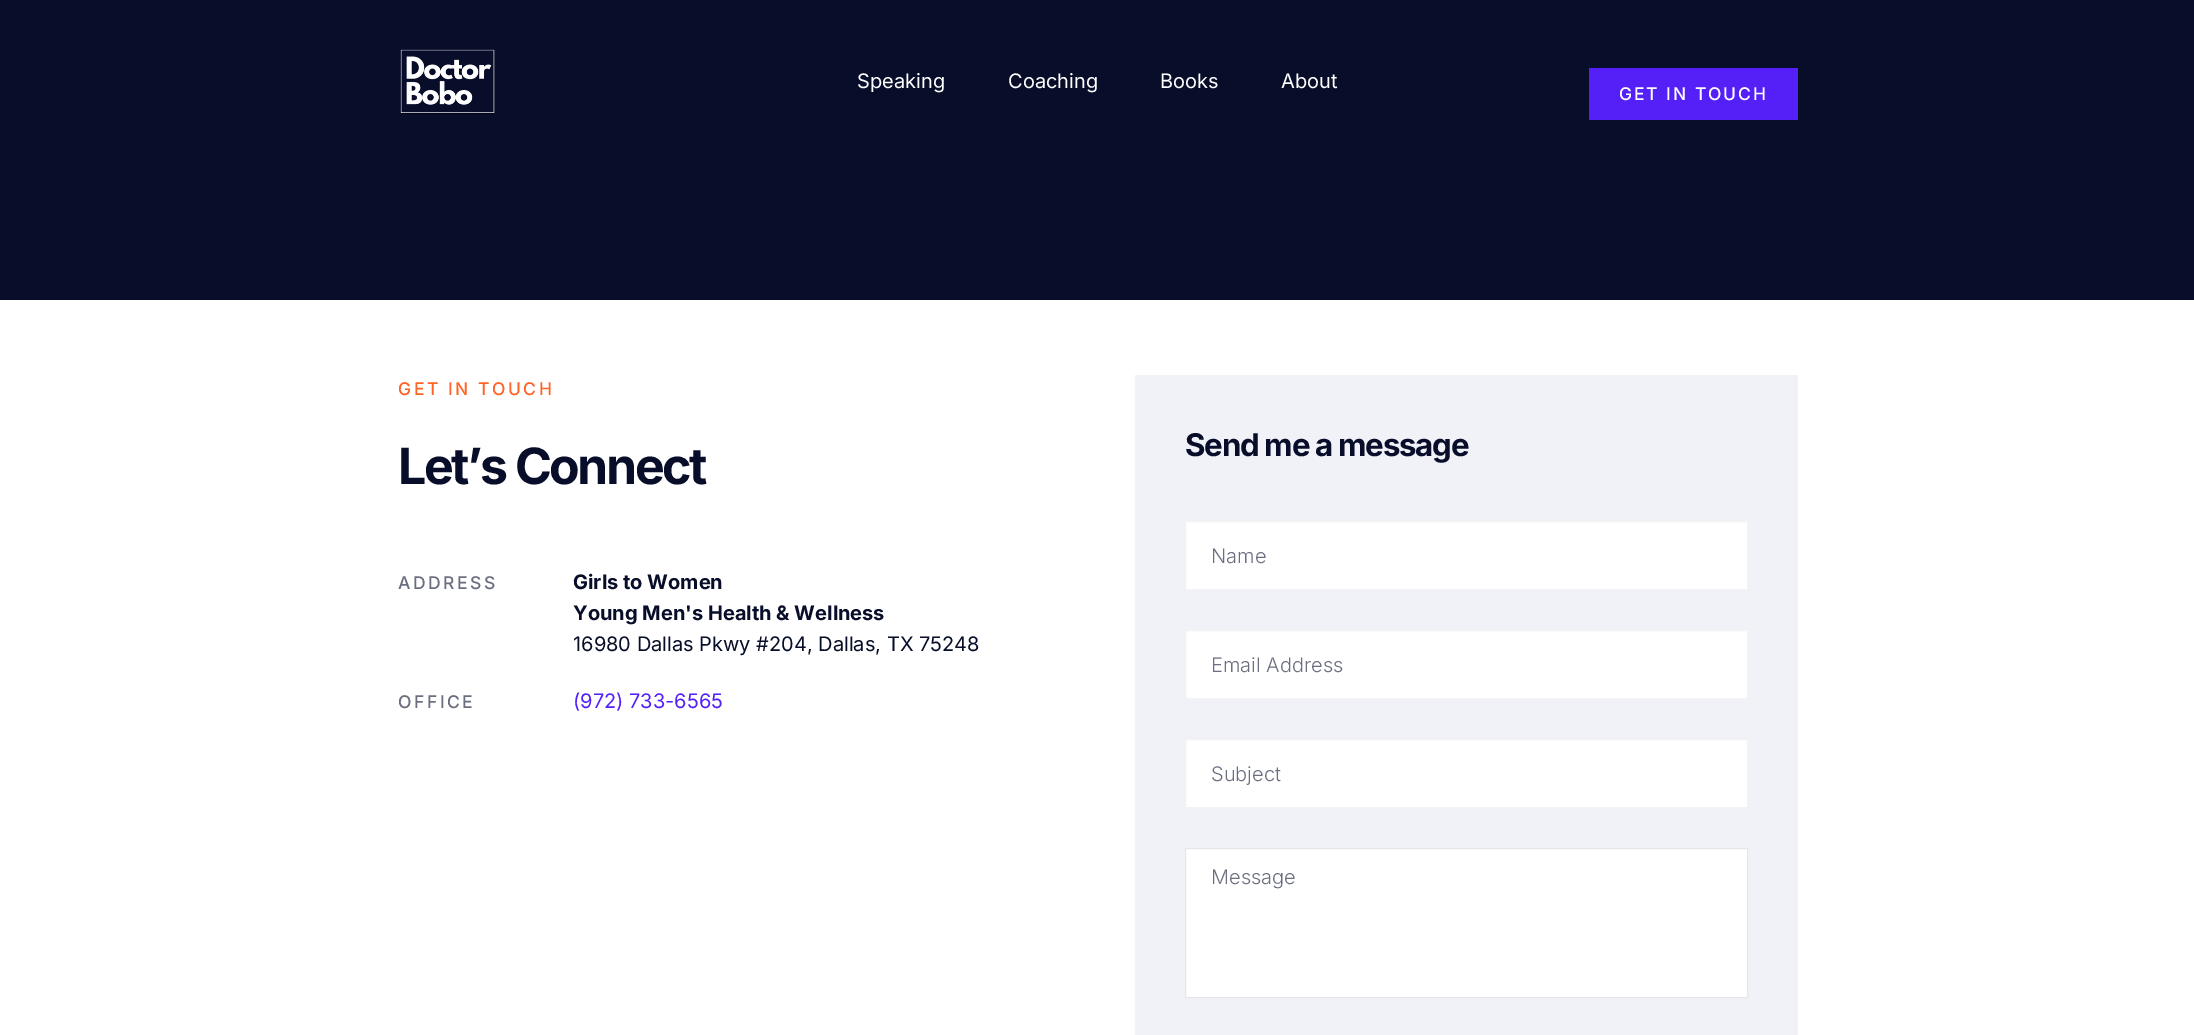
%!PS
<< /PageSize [2194 1035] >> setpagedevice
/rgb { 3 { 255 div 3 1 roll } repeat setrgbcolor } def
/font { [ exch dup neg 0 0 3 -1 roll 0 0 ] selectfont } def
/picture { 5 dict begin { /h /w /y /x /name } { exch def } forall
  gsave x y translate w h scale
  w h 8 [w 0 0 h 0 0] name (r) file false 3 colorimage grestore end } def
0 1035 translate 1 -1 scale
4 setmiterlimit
255 255 255 rgb
0 0 2194 1035 rectfill
8 14 42 rgb
0 0 2194 300 rectfill
(img/1.rgb) 400 49 95 65 picture
84 32 247 rgb
1589 68 209 52 rectfill
241 241 248 rgb
1135 375 663 660 rectfill
255 255 255 rgb
1185.5 521.5 moveto 1747.5 521.5 lineto 1747.5 589.5 lineto 1185.5 589.5 lineto closepath gsave fill grestore
243 243 244 rgb
stroke
255 255 255 rgb
1185.5 630.5 moveto 1747.5 630.5 lineto 1747.5 698.5 lineto 1185.5 698.5 lineto closepath gsave fill grestore
243 243 244 rgb
stroke
255 255 255 rgb
1185.5 739.5 moveto 1747.5 739.5 lineto 1747.5 807.5 lineto 1185.5 807.5 lineto closepath gsave fill grestore
243 243 244 rgb
stroke
255 255 255 rgb
1185.5 848.5 moveto 1747.5 848.5 lineto 1747.5 997.5 lineto 1185.5 997.5 lineto closepath gsave fill grestore
230 231 234 rgb
stroke
/Inter-Regular 20 font
255 255 255 rgb
[
  [(Speaking) 857 88]
  [(Coaching) 1008 88]
  [(Books) 1160 88]
  [(About) 1281 88]
] { aload pop moveto show } forall
/Inter-Medium 17.5 font
1619 100 moveto 1.9 0 (GET IN TOUCH) ashow
255 100 38 rgb
398 395 moveto 2.5 0 (GET IN TOUCH) ashow
/Inter-Bold 50 font
8 14 42 rgb
398 484 moveto -2.5 0 (Let’s Connect) ashow
/Inter-Medium 17.5 font
107 110 127 rgb
398 589 moveto 2.5 0 (ADDRESS) ashow
/Inter-Bold 20 font
8 14 42 rgb
573 589 moveto (Girls to Women) show
573 620 moveto (Young Men's Health & Wellness) show
/Inter-Regular 20 font
573 651 moveto (16980 Dallas Pkwy #204, Dallas, TX 75248) show
/Inter-Medium 17.5 font
107 110 127 rgb
398 708 moveto 2.5 0 (OFFICE) ashow
/Inter-Regular 20 font
84 32 247 rgb
573 708 moveto (\(972\) 733-6565) show
/Inter-Bold 31.25 font
8 14 42 rgb
1185 456 moveto -1.25 0 (Send me a message) ashow
/Inter-Light 20 font
107 110 127 rgb
[
  [(Name) 1211 563]
  [(Email Address) 1211 672]
  [(Subject) 1211 781]
  [(Message) 1211 884]
] { aload pop moveto show } forall
showpage
